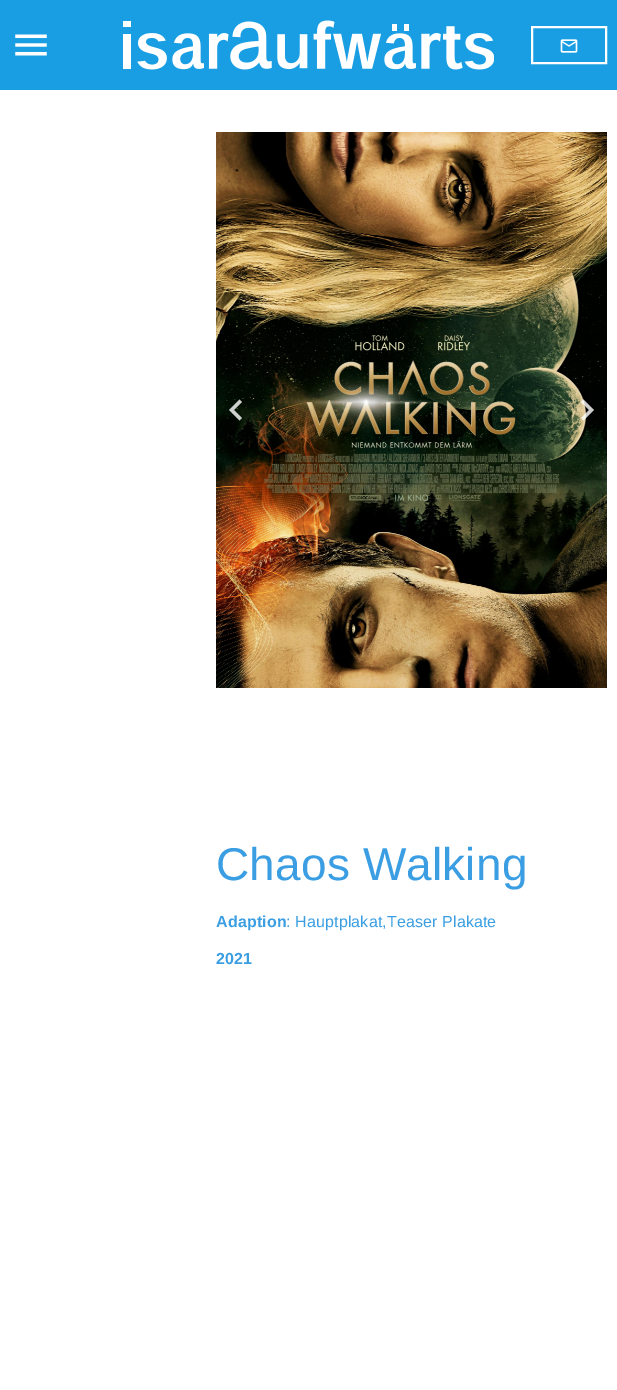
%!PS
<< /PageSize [617 1390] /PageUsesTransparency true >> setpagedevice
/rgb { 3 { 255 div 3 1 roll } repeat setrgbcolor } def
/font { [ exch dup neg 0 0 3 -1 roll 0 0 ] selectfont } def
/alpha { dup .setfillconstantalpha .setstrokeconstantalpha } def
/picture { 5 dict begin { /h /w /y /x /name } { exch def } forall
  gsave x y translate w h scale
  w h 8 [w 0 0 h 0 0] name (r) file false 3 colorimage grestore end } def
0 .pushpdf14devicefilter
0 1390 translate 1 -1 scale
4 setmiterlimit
255 255 255 rgb
0 0 617 1390 rectfill
26 158 227 rgb
0 0 617 90 rectfill
(img/1.rgb) 15 34 32 22 picture
(img/2.rgb) 123 20 371 50 picture
255 255 255 rgb
2 setlinewidth
532 27 74 36 rectstroke
(img/3.rgb) 560 39 18 14 picture
(img/4.rgb) 216 132 391 556 picture
0.8 alpha
242 402 moveto 239.5 399.5 lineto 229 410 lineto 239.5 420.5 lineto 242 418 lineto 234 410 lineto closepath fill
583.5 399.5 moveto 581 402 lineto 589 410 lineto 581 418 lineto 583.5 420.5 lineto 594 410 lineto closepath fill
/LiberationSans-Regular 46 font
1 alpha
59 158 227 rgb
216 880 moveto 0.15 0 (Chaos Walking) ashow
/LiberationSans-Bold 16 font
216 927 moveto 0.15 0 (Adaption) ashow
/LiberationSans-Regular 16 font
286 927 moveto 0.15 0 (: Hauptplakat,Teaser Plakate) ashow
/LiberationSans-Bold 16 font
216 964 moveto 0.15 0 (2021) ashow
.poppdf14devicefilter showpage
